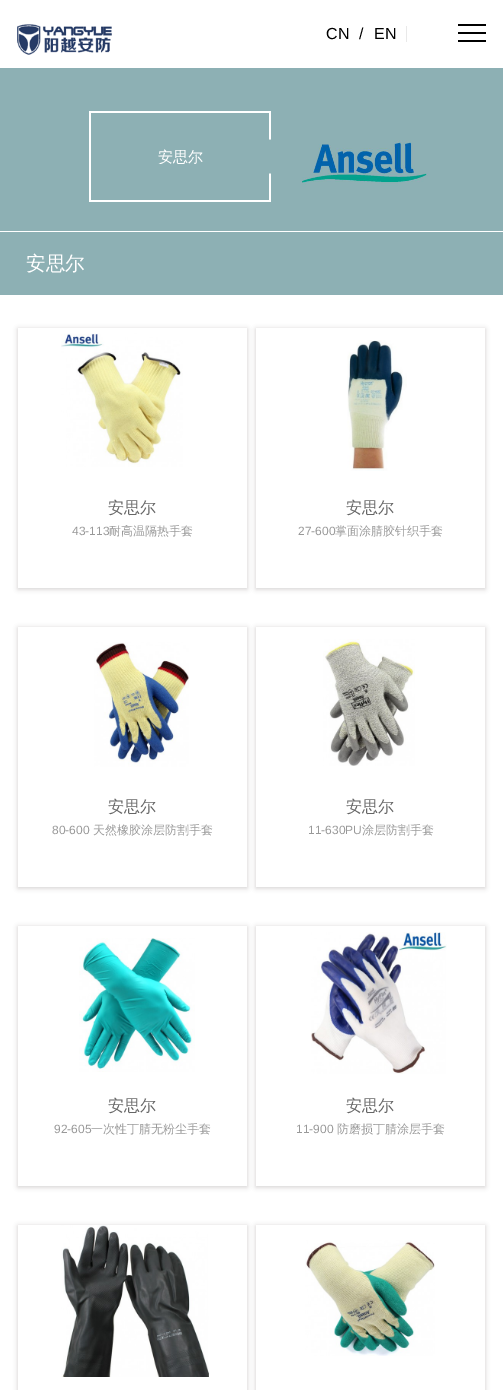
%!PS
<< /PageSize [503 1390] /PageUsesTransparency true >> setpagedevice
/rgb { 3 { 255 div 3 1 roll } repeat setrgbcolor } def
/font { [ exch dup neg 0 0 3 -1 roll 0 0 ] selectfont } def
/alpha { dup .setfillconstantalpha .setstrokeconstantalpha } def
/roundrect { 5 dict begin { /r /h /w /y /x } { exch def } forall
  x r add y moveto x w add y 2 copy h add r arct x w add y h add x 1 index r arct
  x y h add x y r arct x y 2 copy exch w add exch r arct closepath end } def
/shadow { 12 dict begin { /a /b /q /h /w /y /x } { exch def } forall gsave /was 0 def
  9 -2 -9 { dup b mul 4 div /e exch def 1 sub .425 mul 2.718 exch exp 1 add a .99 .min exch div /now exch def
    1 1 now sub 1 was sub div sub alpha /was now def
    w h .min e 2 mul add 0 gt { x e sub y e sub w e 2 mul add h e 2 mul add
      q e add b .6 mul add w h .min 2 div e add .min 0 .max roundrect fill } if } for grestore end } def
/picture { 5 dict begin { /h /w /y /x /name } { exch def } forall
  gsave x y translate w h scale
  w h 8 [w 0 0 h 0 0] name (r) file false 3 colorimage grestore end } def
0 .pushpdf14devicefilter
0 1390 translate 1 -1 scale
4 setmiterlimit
255 255 255 rgb
0 0 503 1390 rectfill
(img/1.rgb) 17 24 95 31 picture
[
  [406 26 1 16 233 233 233]
  [458 24 28 2 0 0 0]
  [458 32 28 2 0 0 0]
  [458 40 28 2 0 0 0]
  [0 68 503 72 141 176 180]
] { aload pop rgb rectfill } forall
(img/2.rgb) 0 140 503 91 picture
(img/3.rgb) 89 111 182 91 picture
0 232 503 63 rectfill
gsave
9 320 moveto 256 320 lineto 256 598 lineto 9 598 lineto closepath 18 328 moveto 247 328 lineto 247 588 lineto 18 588 lineto closepath eoclip newpath
35 25 25 rgb
18 329 229 260 0 2.5 0.2 shadow
grestore
(img/4.rgb) 61 333 122 134 picture
gsave
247 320 moveto 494 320 lineto 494 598 lineto 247 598 lineto closepath 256 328 moveto 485 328 lineto 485 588 lineto 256 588 lineto closepath eoclip newpath
35 25 25 rgb
256 329 229 260 0 2.5 0.2 shadow
grestore
(img/5.rgb) 347 340 60 131 picture
gsave
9 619 moveto 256 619 lineto 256 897 lineto 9 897 lineto closepath 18 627 moveto 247 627 lineto 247 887 lineto 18 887 lineto closepath eoclip newpath
35 25 25 rgb
18 628 229 260 0 2.5 0.2 shadow
grestore
(img/6.rgb) 94 642 95 125 picture
gsave
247 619 moveto 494 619 lineto 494 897 lineto 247 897 lineto closepath 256 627 moveto 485 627 lineto 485 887 lineto 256 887 lineto closepath eoclip newpath
35 25 25 rgb
256 628 229 260 0 2.5 0.2 shadow
grestore
(img/7.rgb) 323 639 92 127 picture
gsave
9 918 moveto 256 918 lineto 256 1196 lineto 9 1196 lineto closepath 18 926 moveto 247 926 lineto 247 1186 lineto 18 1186 lineto closepath eoclip newpath
35 25 25 rgb
18 927 229 260 0 2.5 0.2 shadow
grestore
(img/8.rgb) 79 938 116 134 picture
gsave
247 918 moveto 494 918 lineto 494 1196 lineto 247 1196 lineto closepath 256 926 moveto 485 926 lineto 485 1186 lineto 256 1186 lineto closepath eoclip newpath
35 25 25 rgb
256 927 229 260 0 2.5 0.2 shadow
grestore
(img/9.rgb) 311 932 136 142 picture
gsave
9 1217 moveto 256 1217 lineto 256 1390 lineto 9 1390 lineto closepath 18 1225 moveto 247 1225 lineto 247 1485 lineto 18 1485 lineto closepath eoclip newpath
35 25 25 rgb
18 1226 229 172 0 2.5 0.2 shadow
grestore
(img/10.rgb) 61 1225 148 152 picture
gsave
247 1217 moveto 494 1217 lineto 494 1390 lineto 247 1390 lineto closepath 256 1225 moveto 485 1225 lineto 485 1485 lineto 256 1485 lineto closepath eoclip newpath
35 25 25 rgb
256 1226 229 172 0 2.5 0.2 shadow
grestore
(img/11.rgb) 305 1240 130 116 picture
/LiberationSans-Regular 16 font
0 0 0 rgb
[
  [(CN) 326 39]
  [(/) 359 39]
  [(EN) 374 39]
] { aload pop moveto show } forall
/WenQuanYiZenHei-Medium 15 font
255 255 255 rgb
158 162 moveto (安思尔) show
/WenQuanYiZenHei-Medium 19.5 font
26 270 moveto (安思尔) show
/WenQuanYiZenHei-Medium 16 font
102 102 102 rgb
108 513 moveto (安思尔) show
/LiberationSans-Regular 12 font
153 153 153 rgb
72 535 moveto (43-113) show
/WenQuanYiZenHei-Medium 12 font
109 535 moveto (耐高温隔热手套) show
/WenQuanYiZenHei-Medium 16 font
102 102 102 rgb
346 513 moveto (安思尔) show
/LiberationSans-Regular 12 font
153 153 153 rgb
298 535 moveto (27-600) show
/WenQuanYiZenHei-Medium 12 font
335 535 moveto (掌面涂腈胶针织手套) show
/WenQuanYiZenHei-Medium 16 font
102 102 102 rgb
108 812 moveto (安思尔) show
/LiberationSans-Regular 12 font
153 153 153 rgb
52 834 moveto (80-600) show
/WenQuanYiZenHei-Medium 12 font
93 834 moveto (天然橡胶涂层防割手套) show
/WenQuanYiZenHei-Medium 16 font
102 102 102 rgb
346 812 moveto (安思尔) show
/LiberationSans-Regular 12 font
153 153 153 rgb
308 834 moveto (11-630PU) show
/WenQuanYiZenHei-Medium 12 font
362 834 moveto (涂层防割手套) show
/WenQuanYiZenHei-Medium 16 font
102 102 102 rgb
108 1111 moveto (安思尔) show
/LiberationSans-Regular 12 font
153 153 153 rgb
54 1133 moveto (92-605) show
/WenQuanYiZenHei-Medium 12 font
91 1133 moveto (一次性丁腈无粉尘手套) show
/WenQuanYiZenHei-Medium 16 font
102 102 102 rgb
346 1111 moveto (安思尔) show
/LiberationSans-Regular 12 font
153 153 153 rgb
296 1133 moveto (11-900) show
/WenQuanYiZenHei-Medium 12 font
337 1133 moveto (防磨损丁腈涂层手套) show
.poppdf14devicefilter showpage
